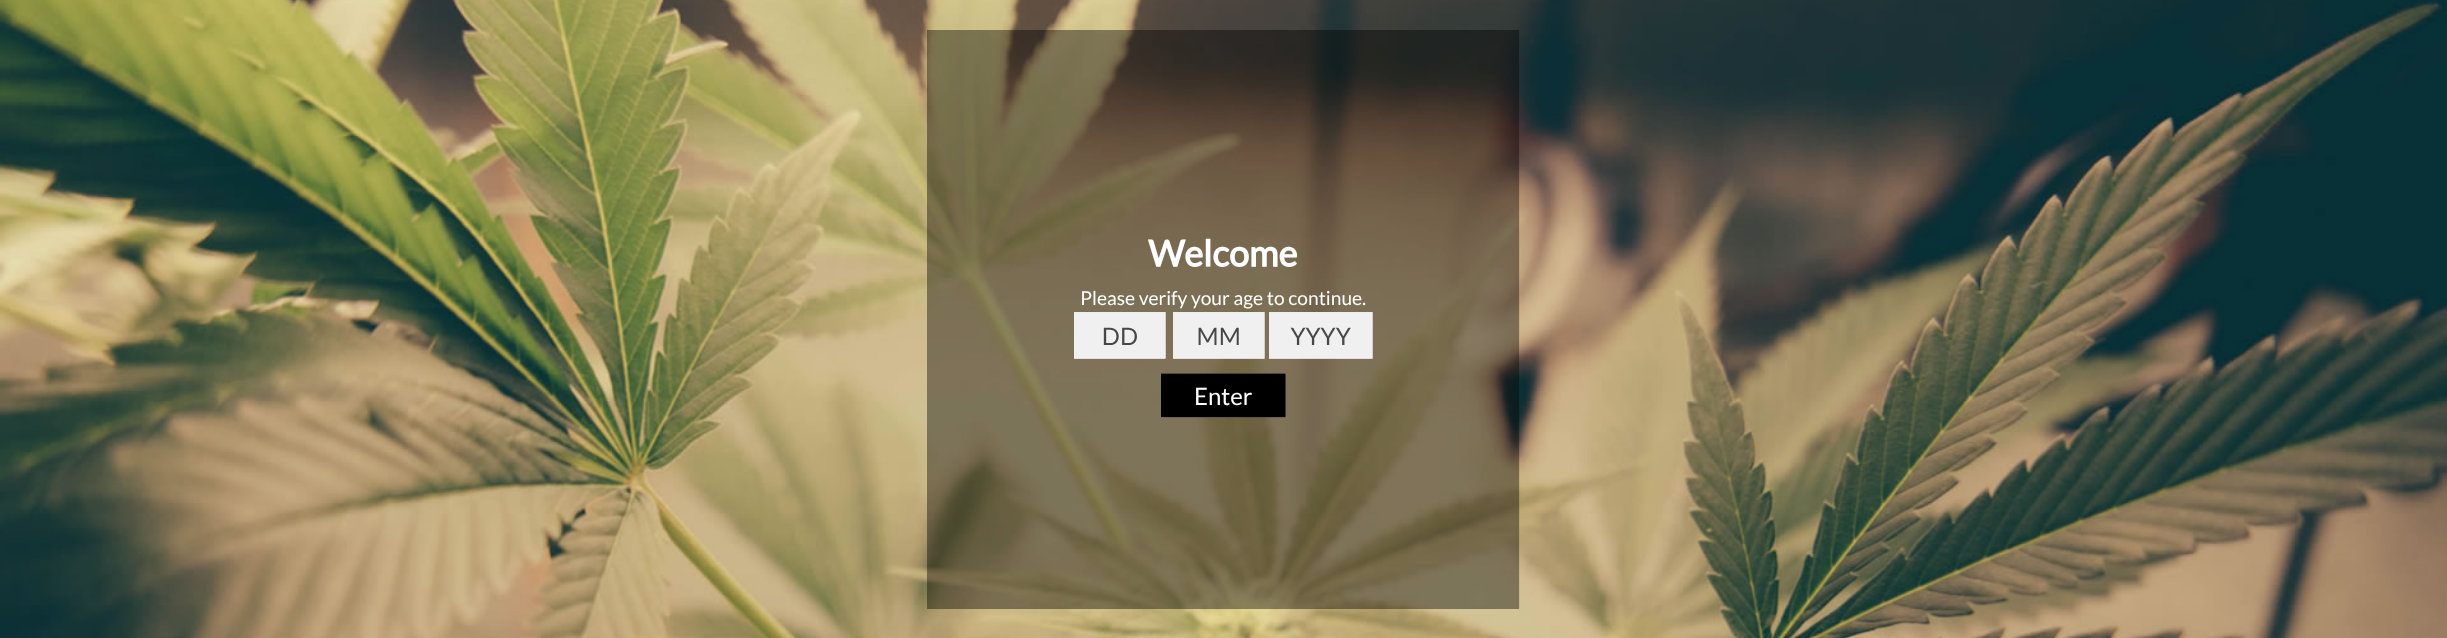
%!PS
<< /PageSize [2447 638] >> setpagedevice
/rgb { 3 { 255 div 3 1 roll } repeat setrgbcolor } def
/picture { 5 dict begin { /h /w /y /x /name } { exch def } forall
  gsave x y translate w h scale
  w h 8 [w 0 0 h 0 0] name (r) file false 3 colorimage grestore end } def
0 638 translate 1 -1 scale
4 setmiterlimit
255 255 255 rgb
0 0 2447 638 rectfill
(img/1.rgb) 0 0 2447 638 picture
(img/2.rgb) 927 30 593 579 picture
showpage
